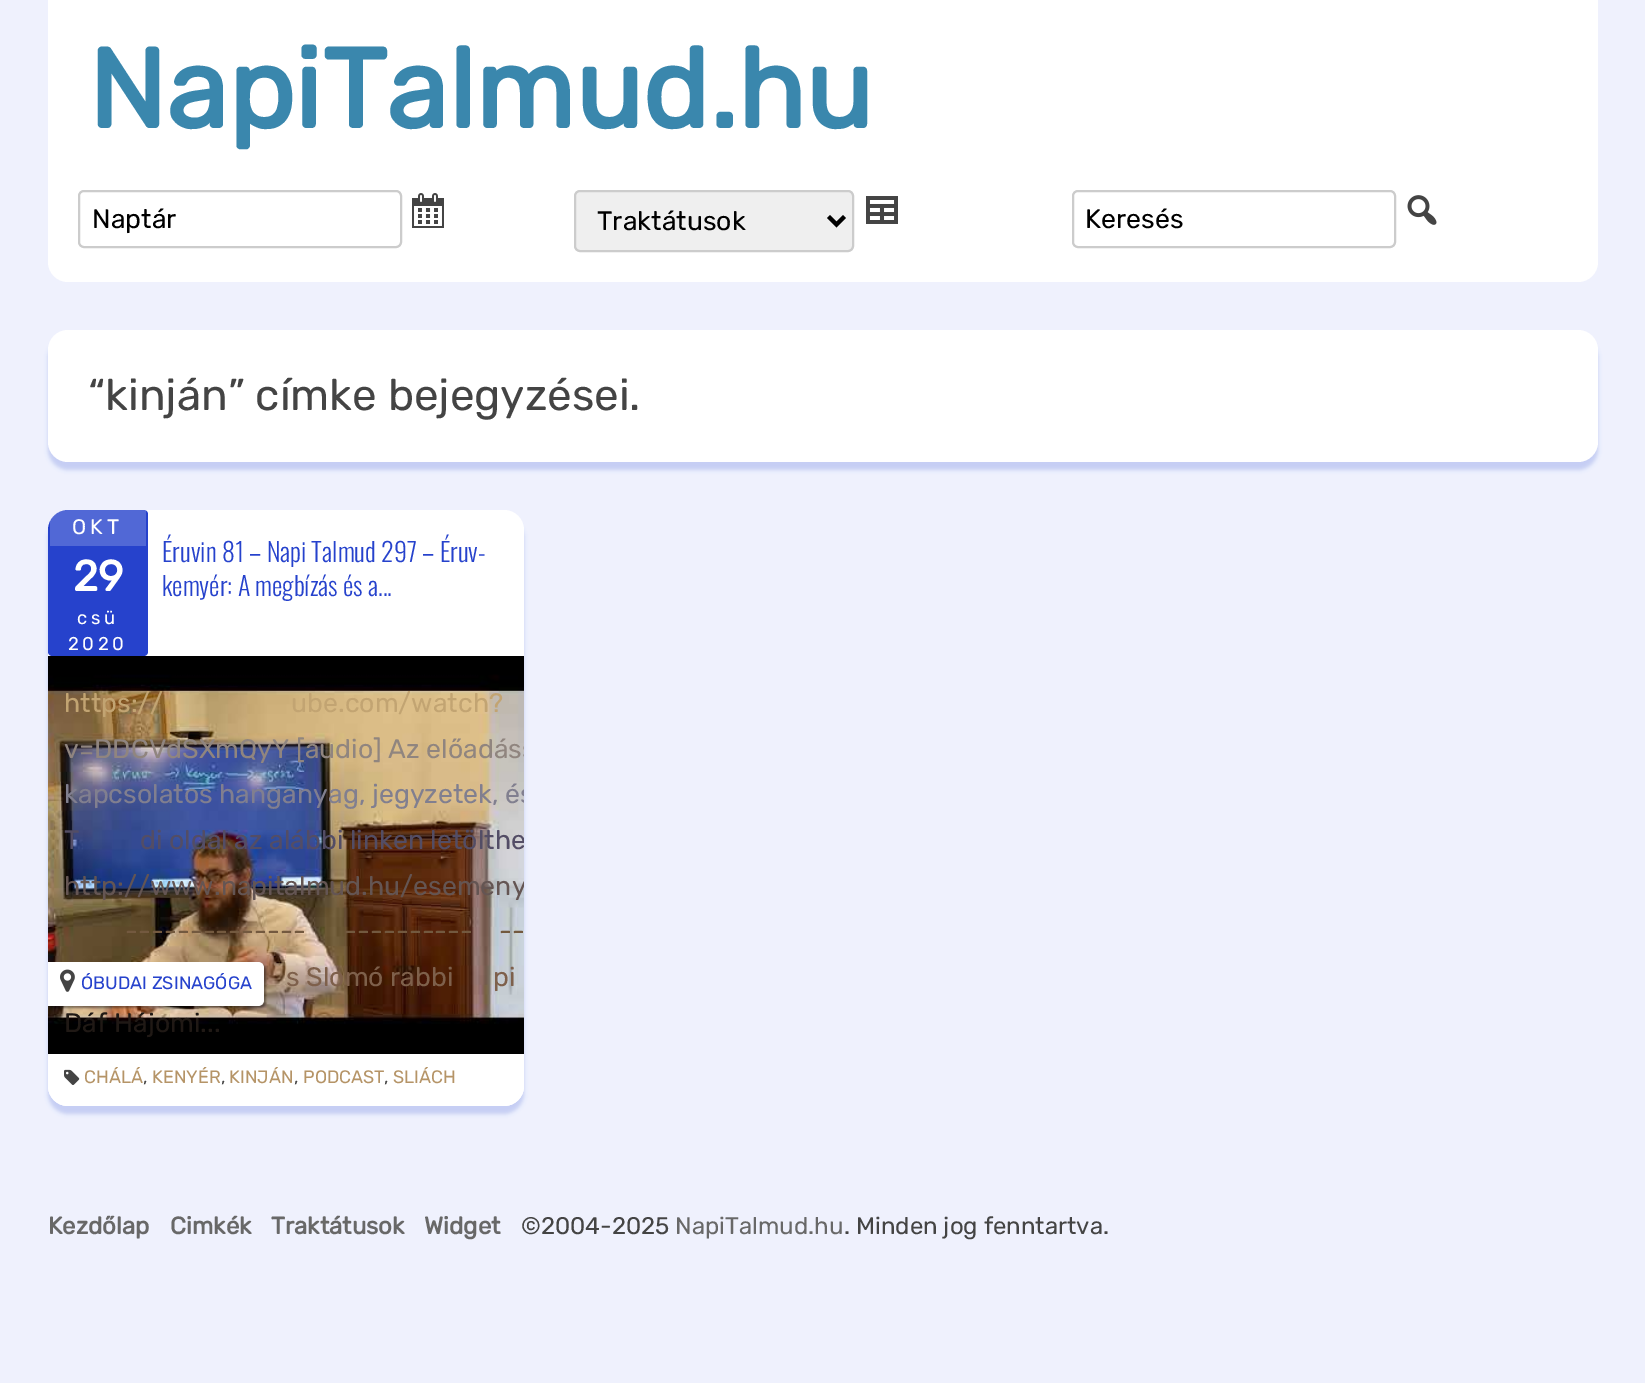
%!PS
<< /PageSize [1645 1383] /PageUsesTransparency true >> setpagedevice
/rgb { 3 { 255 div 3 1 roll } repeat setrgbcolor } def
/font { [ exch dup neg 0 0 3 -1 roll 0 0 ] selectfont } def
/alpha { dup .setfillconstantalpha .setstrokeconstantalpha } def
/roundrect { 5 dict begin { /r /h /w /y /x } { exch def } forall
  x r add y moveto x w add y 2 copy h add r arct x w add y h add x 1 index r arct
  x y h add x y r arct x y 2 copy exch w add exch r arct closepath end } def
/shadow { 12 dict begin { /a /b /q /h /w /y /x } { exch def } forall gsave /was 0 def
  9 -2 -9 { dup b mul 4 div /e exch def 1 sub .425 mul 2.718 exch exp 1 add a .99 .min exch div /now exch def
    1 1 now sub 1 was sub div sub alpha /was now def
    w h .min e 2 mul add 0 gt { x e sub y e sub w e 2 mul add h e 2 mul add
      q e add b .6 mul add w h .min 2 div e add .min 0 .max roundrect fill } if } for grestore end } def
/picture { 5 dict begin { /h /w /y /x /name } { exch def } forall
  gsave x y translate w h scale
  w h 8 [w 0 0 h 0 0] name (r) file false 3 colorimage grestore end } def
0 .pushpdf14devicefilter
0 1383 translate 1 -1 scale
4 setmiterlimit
239 241 253 rgb
0 0 1645 1383 rectfill
255 255 255 rgb
48 0 1550 160 rectfill
48 160 moveto 1598 160 lineto 1598 262 lineto 1598 273 1589 282 1578 282 curveto 68 282 lineto 57 282 48 273 48 262 curveto closepath fill
204 204 204 rgb
2 setlinewidth
79 191 322 56 5 roundrect stroke
(img/1.rgb) 412 193 32 35 picture
239 239 239 rgb
575 191 278 60 5 roundrect gsave fill grestore
204 204 204 rgb
stroke
0 0 0 rgb
4 setlinewidth
828.5 216.5 moveto 836.5 224.5 lineto 844.5 216.5 lineto stroke
(img/2.rgb) 866 196 32 28 picture
204 204 204 rgb
2 setlinewidth
1073 191 322 56 5 roundrect stroke
(img/3.rgb) 1407 195 30 30 picture
38 66 204 rgb
48 338 1550 132 20 2 0.2 shadow
255 255 255 rgb
48 330 1550 132 20 roundrect fill
38 66 204 rgb
48 518 476 596 20 2 0.2 shadow
255 255 255 rgb
48 510 476 596 20 roundrect fill
38 66 204 rgb
68 510 moveto 144 510 lineto 146 510 148 512 148 514 curveto 148 652 lineto 148 654 146 656 144 656 curveto 52 656 lineto 50 656 48 654 48 652 curveto 48 530 lineto 48 519 57 510 68 510 curveto closepath fill
gsave
48 510 476 596 20 roundrect clip newpath
0.2 alpha
255 255 255 rgb
50 510 96 36 rectfill
grestore
(img/4.rgb) 48 656 476 398 picture
0 0 0 rgb
50 964 216 44 6 1 0.4 shadow
255 255 255 rgb
48 962 moveto 258 962 lineto 261.5 962 264 964.5 264 968 curveto 264 1000 lineto 264 1003.5 261.5 1006 258 1006 curveto 48 1006 lineto closepath fill
(img/5.rgb) 60 969 15 23 picture
48 1054 moveto 524 1054 lineto 524 1086 lineto 524 1097 515 1106 504 1106 curveto 68 1106 lineto 57 1106 48 1097 48 1086 curveto closepath fill
(img/6.rgb) 64 1069 16 16 picture
/Rubik-Bold 112 font
58 135 173 rgb
88 128 moveto (NapiTalmud.hu) show
/Rubik-Light 26.7 font
0 0 0 rgb
[
  [(Naptár) 92 228]
  [(Traktátusok) 597 230]
  [(Keresés) 1085 228]
] { aload pop moveto show } forall
/Rubik-Light 44 font
68 68 68 rgb
88 410 moveto (“kinján” címke bejegyzései.) show
/Rubik-Light 21 font
255 255 255 rgb
72 534 moveto 4 0 (OKT) ashow
/Rubik-Bold 43 font
73 591 moveto (29) show
/Rubik-Light 18.5 font
77 624 moveto 3.5 0 (csü) ashow
68 650 moveto 3.5 0 (2020) ashow
/Oswald-Light 26 font
38 66 204 rgb
162 562 moveto (Éruvin 81 – Napi Talmud 297 – Éruv-) show
162 596 moveto (kemyér: A megbízás és a...) show
/Rubik-Light 26.7 font
194 164 114 rgb
64 712 moveto (https://) show
291 712 moveto (ube.com/watch?) show
gsave
48 510 476 596 20 roundrect clip newpath
144 133 127 rgb
64 758 moveto (v=DDCVdSXmQyY [audio] Az előadáss) show
129 127 143 rgb
64 803 moveto (kapcsolatos hanganyag, jegyzetek, és) show
grestore
83 77 101 rgb
64 849 moveto (T) show
gsave
48 510 476 596 20 roundrect clip newpath
140 849 moveto (di oldal az alábbi linken letölthe) show
100 85 83 rgb
64 895 moveto (http://www.napitalmud.hu/esemeny) show
grestore
115 89 63 rgb
[
  [(--------------) 125 940]
  [(----------) 344 940]
  [(--) 499 940]
] { aload pop moveto show } forall
126 96 75 rgb
286 986 moveto (s Slomó rabbi) show
493 986 moveto (pi) show
32 25 21 rgb
64 1032 moveto (Dáf Hájomi...) show
/Rubik-Light 18 font
38 66 204 rgb
81 989 moveto (ÓBUDAI ZSINAGÓGA) show
181 148 103 rgb
84 1083 moveto (CHÁLÁ) show
68 68 68 rgb
143 1083 moveto (,) show
181 148 103 rgb
152 1083 moveto (KENYÉR) show
68 68 68 rgb
221 1083 moveto (,) show
181 148 103 rgb
229 1083 moveto (KINJÁN) show
68 68 68 rgb
294 1083 moveto (,) show
181 148 103 rgb
303 1083 moveto (PODCAST) show
68 68 68 rgb
384 1083 moveto (,) show
181 148 103 rgb
393 1083 moveto (SLIÁCH) show
/Rubik-Bold 24 font
104 104 104 rgb
[
  [(Kezdőlap) 48 1234]
  [(Cimkék) 170 1234]
  [(Traktátusok) 271 1234]
  [(Widget) 424 1234]
] { aload pop moveto show } forall
/Rubik-Light 24 font
68 68 68 rgb
521 1234 moveto (©2004-2025) show
104 104 104 rgb
675 1234 moveto (NapiTalmud.hu) show
68 68 68 rgb
844 1234 moveto (. Minden jog fenntartva.) show
.poppdf14devicefilter showpage
